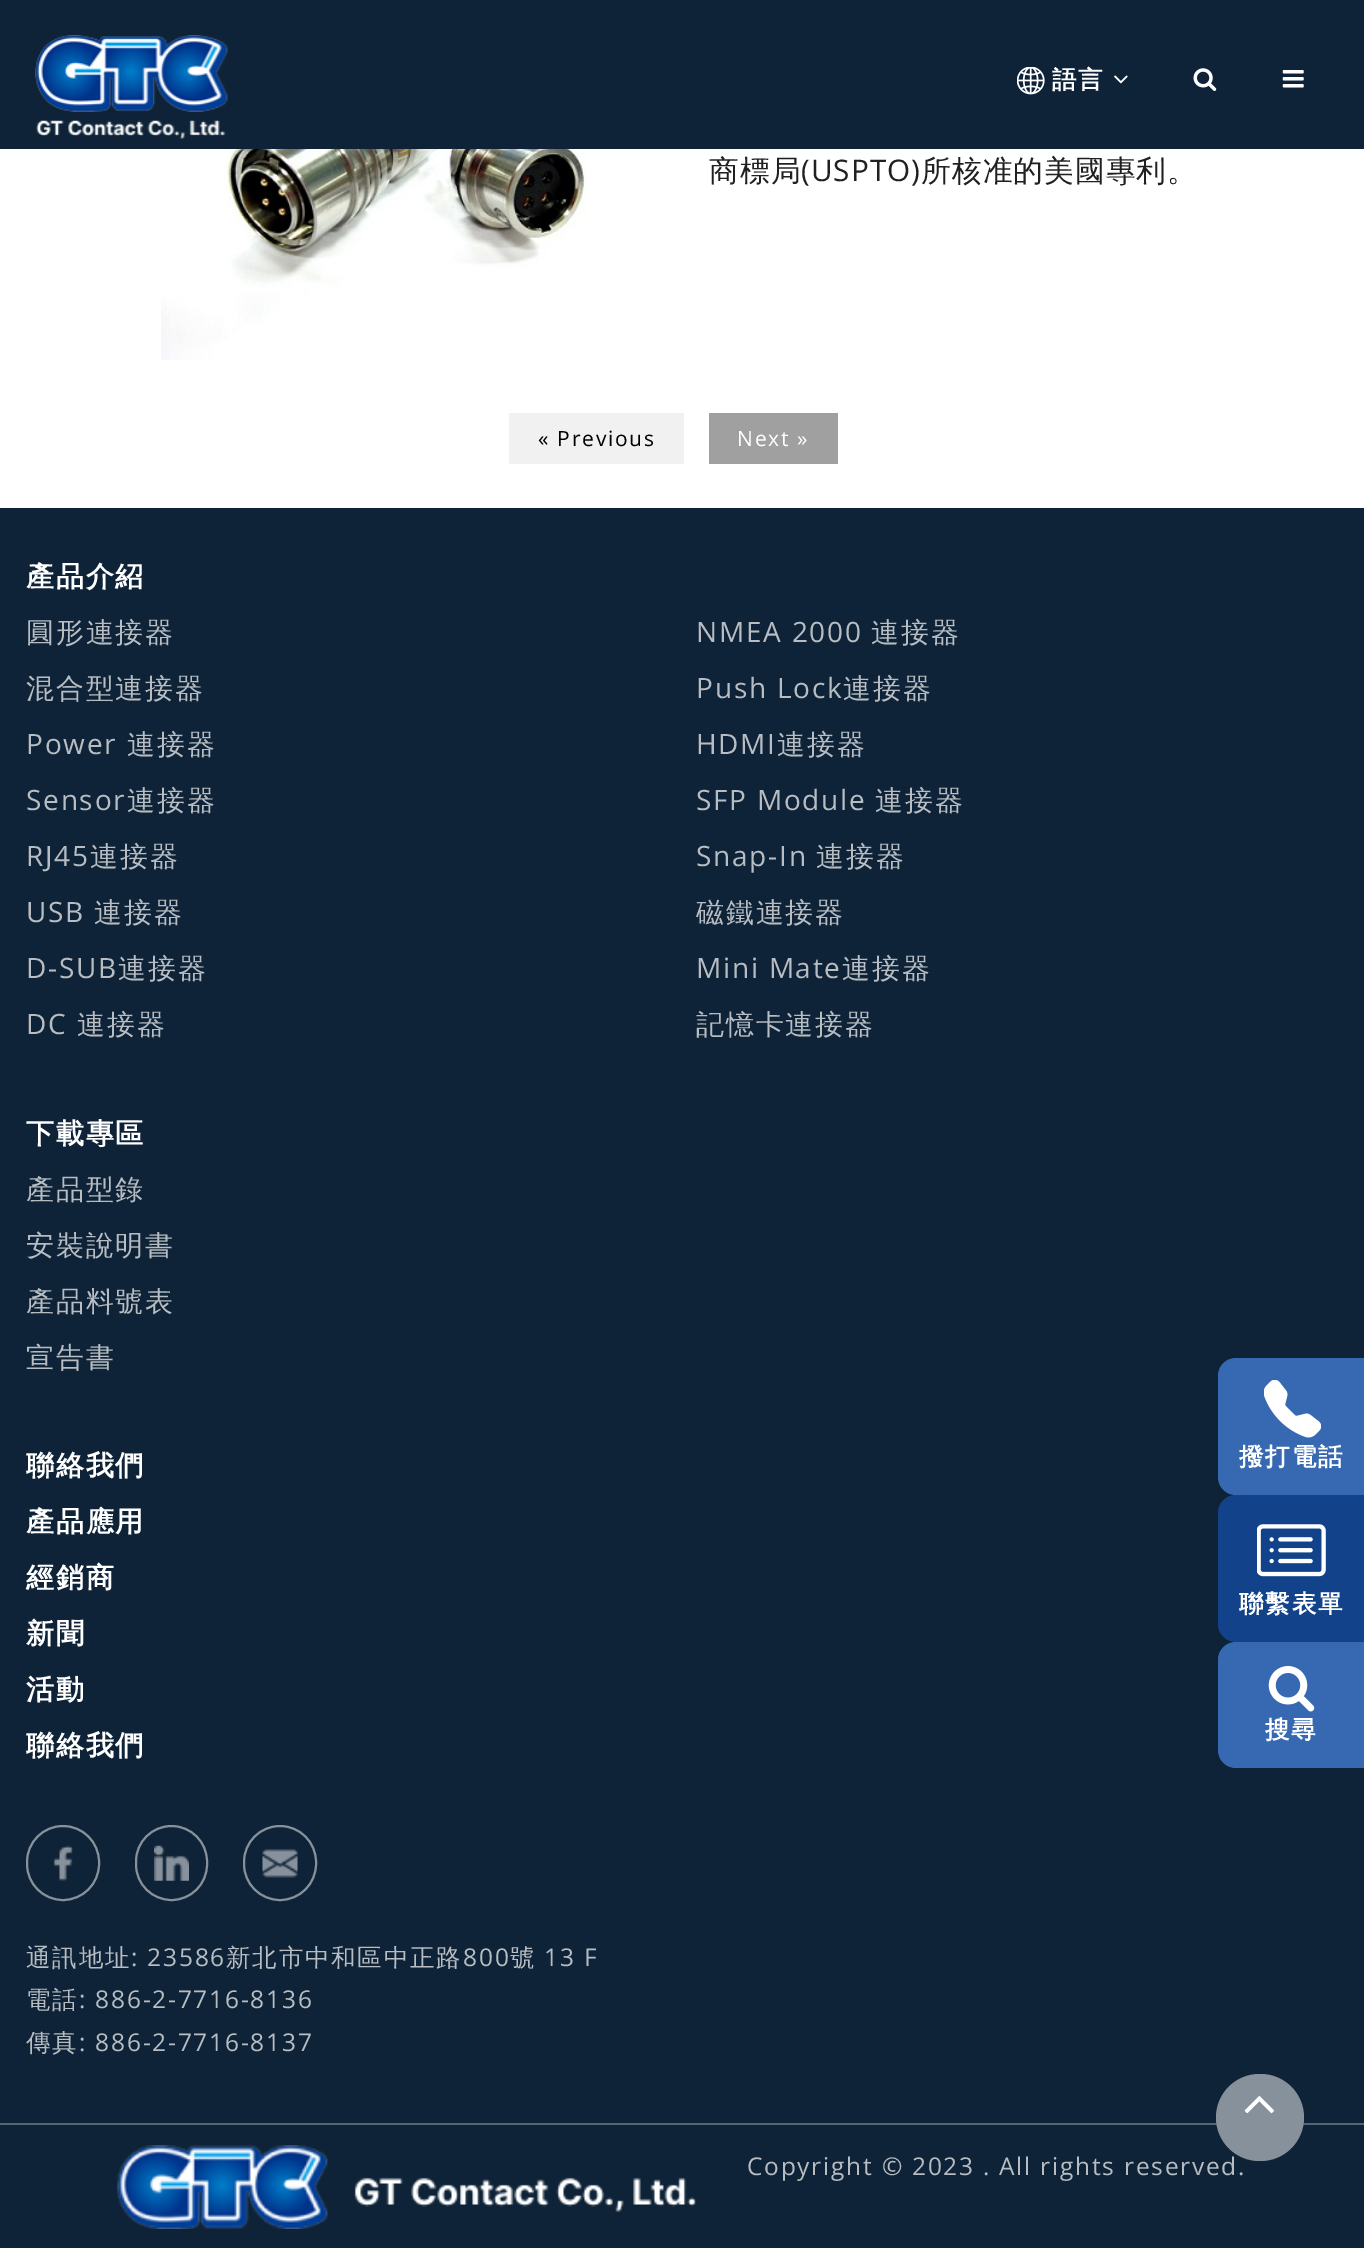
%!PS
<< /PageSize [1364 2248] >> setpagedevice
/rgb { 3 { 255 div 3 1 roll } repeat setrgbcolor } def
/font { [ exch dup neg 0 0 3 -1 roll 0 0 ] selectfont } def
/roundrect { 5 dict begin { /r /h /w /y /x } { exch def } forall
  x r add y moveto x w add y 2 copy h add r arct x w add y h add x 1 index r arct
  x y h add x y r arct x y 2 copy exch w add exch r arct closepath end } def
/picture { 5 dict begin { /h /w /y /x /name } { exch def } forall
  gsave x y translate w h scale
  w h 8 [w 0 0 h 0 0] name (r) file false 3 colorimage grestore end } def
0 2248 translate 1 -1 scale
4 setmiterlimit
255 255 255 rgb
0 0 1364 2248 rectfill
14 35 55 rgb
0 0 1364 149 rectfill
(img/1.rgb) 35 35 193 104 picture
(img/2.rgb) 1017 67 28 28 picture
(img/3.rgb) 1114 75 14 9 picture
(img/4.rgb) 1193 68 24 23 picture
(img/5.rgb) 1282 70 22 18 picture
(img/6.rgb) 161 149 426 211 picture
[
  [509 413 175 51 241 241 241]
  [709 413 129 51 160 160 160]
  [0 508 1364 1740 14 35 55]
] { aload pop rgb rectfill } forall
134 145 155 rgb
2 setlinewidth
27 1826 72 74 36 roundrect stroke
(img/7.rgb) 53 1845 20 36 picture
136 1826 71 74 35.5 roundrect stroke
(img/8.rgb) 154 1845 35 36 picture
244 1826 72 74 36 roundrect stroke
(img/9.rgb) 262 1849 36 29 picture
86 101 115 rgb
0 2123 1364 2 rectfill
(img/10.rgb) 117 2145 579 84 picture
55 105 178 rgb
1236 1358 moveto 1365 1358 lineto 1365 1495 lineto 1236 1495 lineto 1226 1495 1218 1487 1218 1477 curveto 1218 1376 lineto 1218 1366 1226 1358 1236 1358 curveto closepath fill
(img/11.rgb) 1264 1380 57 58 picture
18 66 137 rgb
1236 1495 moveto 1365 1495 lineto 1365 1642 lineto 1236 1642 lineto 1226 1642 1218 1634 1218 1624 curveto 1218 1513 lineto 1218 1503 1226 1495 1236 1495 curveto closepath fill
(img/12.rgb) 1257 1524 69 53 picture
55 105 178 rgb
1236 1642 moveto 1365 1642 lineto 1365 1768 lineto 1236 1768 lineto 1226 1768 1218 1760 1218 1750 curveto 1218 1660 lineto 1218 1650 1226 1642 1236 1642 curveto closepath fill
(img/13.rgb) 1268 1666 47 46 picture
/WenQuanYiZenHei-Bold 24.5 font
255 255 255 rgb
1052 88 moveto 1.75 0 (語言) ashow
/WenQuanYiZenHei-Medium 29.75 font
32 32 32 rgb
709 181 moveto 1 0 (商標局) ashow
/OpenSans-Regular 29.75 font
801 181 moveto 1 0 (\(USPTO\)) ashow
/WenQuanYiZenHei-Medium 29.75 font
921 181 moveto 1 0 (所核准的美國專利。) ashow
/OpenSans-Regular 21 font
0 0 0 rgb
538 446 moveto 1.75 0 (« Previous) ashow
255 255 255 rgb
737 446 moveto 1.75 0 (Next ») ashow
/WenQuanYiZenHei-Bold 28 font
26 586 moveto 1.75 0 (產品介紹) ashow
/WenQuanYiZenHei-Medium 28 font
183 189 195 rgb
26 642 moveto 1.75 0 (圓形連接器) ashow
26 698 moveto 1.75 0 (混合型連接器) ashow
/OpenSans-Regular 28 font
26 754 moveto 1.75 0 (Power) ashow
/WenQuanYiZenHei-Medium 28 font
127 754 moveto 1.75 0 (連接器) ashow
/OpenSans-Regular 28 font
26 810 moveto 1.75 0 (Sensor) ashow
/WenQuanYiZenHei-Medium 28 font
127 810 moveto 1.75 0 (連接器) ashow
/OpenSans-Regular 28 font
26 866 moveto 1.75 0 (RJ45) ashow
/WenQuanYiZenHei-Medium 28 font
90 866 moveto 1.75 0 (連接器) ashow
/OpenSans-Regular 28 font
26 922 moveto 1.75 0 (USB) ashow
/WenQuanYiZenHei-Medium 28 font
94 922 moveto 1.75 0 (連接器) ashow
/OpenSans-Regular 28 font
26 978 moveto 1.75 0 (D-SUB) ashow
/WenQuanYiZenHei-Medium 28 font
118 978 moveto 1.75 0 (連接器) ashow
/OpenSans-Regular 28 font
26 1034 moveto 1.75 0 (DC) ashow
/WenQuanYiZenHei-Medium 28 font
77 1034 moveto 1.75 0 (連接器) ashow
/OpenSans-Regular 28 font
696 642 moveto 1.75 0 (NMEA 2000) ashow
/WenQuanYiZenHei-Medium 28 font
871 642 moveto 1.75 0 (連接器) ashow
/OpenSans-Regular 28 font
696 698 moveto 1.75 0 (Push Lock) ashow
/WenQuanYiZenHei-Medium 28 font
843 698 moveto 1.75 0 (連接器) ashow
/OpenSans-Regular 28 font
696 754 moveto 1.75 0 (HDMI) ashow
/WenQuanYiZenHei-Medium 28 font
777 754 moveto 1.75 0 (連接器) ashow
/OpenSans-Regular 28 font
696 810 moveto 1.75 0 (SFP Module) ashow
/WenQuanYiZenHei-Medium 28 font
875 810 moveto 1.75 0 (連接器) ashow
/OpenSans-Regular 28 font
696 866 moveto 1.75 0 (Snap-In) ashow
/WenQuanYiZenHei-Medium 28 font
816 866 moveto 1.75 0 (連接器) ashow
696 922 moveto 1.75 0 (磁鐵連接器) ashow
/OpenSans-Regular 28 font
696 978 moveto 1.75 0 (Mini Mate) ashow
/WenQuanYiZenHei-Medium 28 font
842 978 moveto 1.75 0 (連接器) ashow
696 1034 moveto 1.75 0 (記憶卡連接器) ashow
/WenQuanYiZenHei-Bold 28 font
255 255 255 rgb
26 1143 moveto 1.75 0 (下載專區) ashow
/WenQuanYiZenHei-Medium 28 font
183 189 195 rgb
26 1199 moveto 1.75 0 (產品型錄) ashow
26 1255 moveto 1.75 0 (安裝說明書) ashow
26 1311 moveto 1.75 0 (產品料號表) ashow
26 1367 moveto 1.75 0 (宣告書) ashow
/WenQuanYiZenHei-Bold 28 font
255 255 255 rgb
26 1475 moveto 1.75 0 (聯絡我們) ashow
26 1531 moveto 1.75 0 (產品應用) ashow
26 1587 moveto 1.75 0 (經銷商) ashow
26 1643 moveto 1.75 0 (新聞) ashow
26 1699 moveto 1.75 0 (活動) ashow
26 1755 moveto 1.75 0 (聯絡我們) ashow
/WenQuanYiZenHei-Medium 24.5 font
183 189 195 rgb
26 1966 moveto 1.75 0 (通訊地址) ashow
/OpenSans-Regular 24.5 font
131 1966 moveto 1.75 0 (: 23586) ashow
/WenQuanYiZenHei-Medium 24.5 font
226 1966 moveto 1.75 0 (新北市中和區中正路) ashow
/OpenSans-Regular 24.5 font
463 1966 moveto 1.75 0 (800) ashow
/WenQuanYiZenHei-Medium 24.5 font
510 1966 moveto 1.75 0 (號) ashow
/OpenSans-Regular 24.5 font
544 1966 moveto 1.75 0 (13 F) ashow
/WenQuanYiZenHei-Medium 24.5 font
26 2008 moveto 1.75 0 (電話) ashow
/OpenSans-Regular 24.5 font
79 2008 moveto 1.75 0 (: 886-2-7716-8136) ashow
/WenQuanYiZenHei-Medium 24.5 font
26 2051 moveto 1.75 0 (傳真) ashow
/OpenSans-Regular 24.5 font
79 2051 moveto 1.75 0 (: 886-2-7716-8137) ashow
747 2175 moveto 1.75 0 (Copyright © 2023 . All rights reserved.) ashow
/WenQuanYiZenHei-Bold 24.5 font
255 255 255 rgb
1239 1465 moveto 1.75 0 (撥打電話) ashow
1239 1612 moveto 1.75 0 (聯繫表單) ashow
1265 1738 moveto 1.75 0 (搜尋) ashow
135 145 155 rgb
1216 2074 88 87 43.5 roundrect fill
(img/14.rgb) 1244 2096 30 18 picture
showpage
